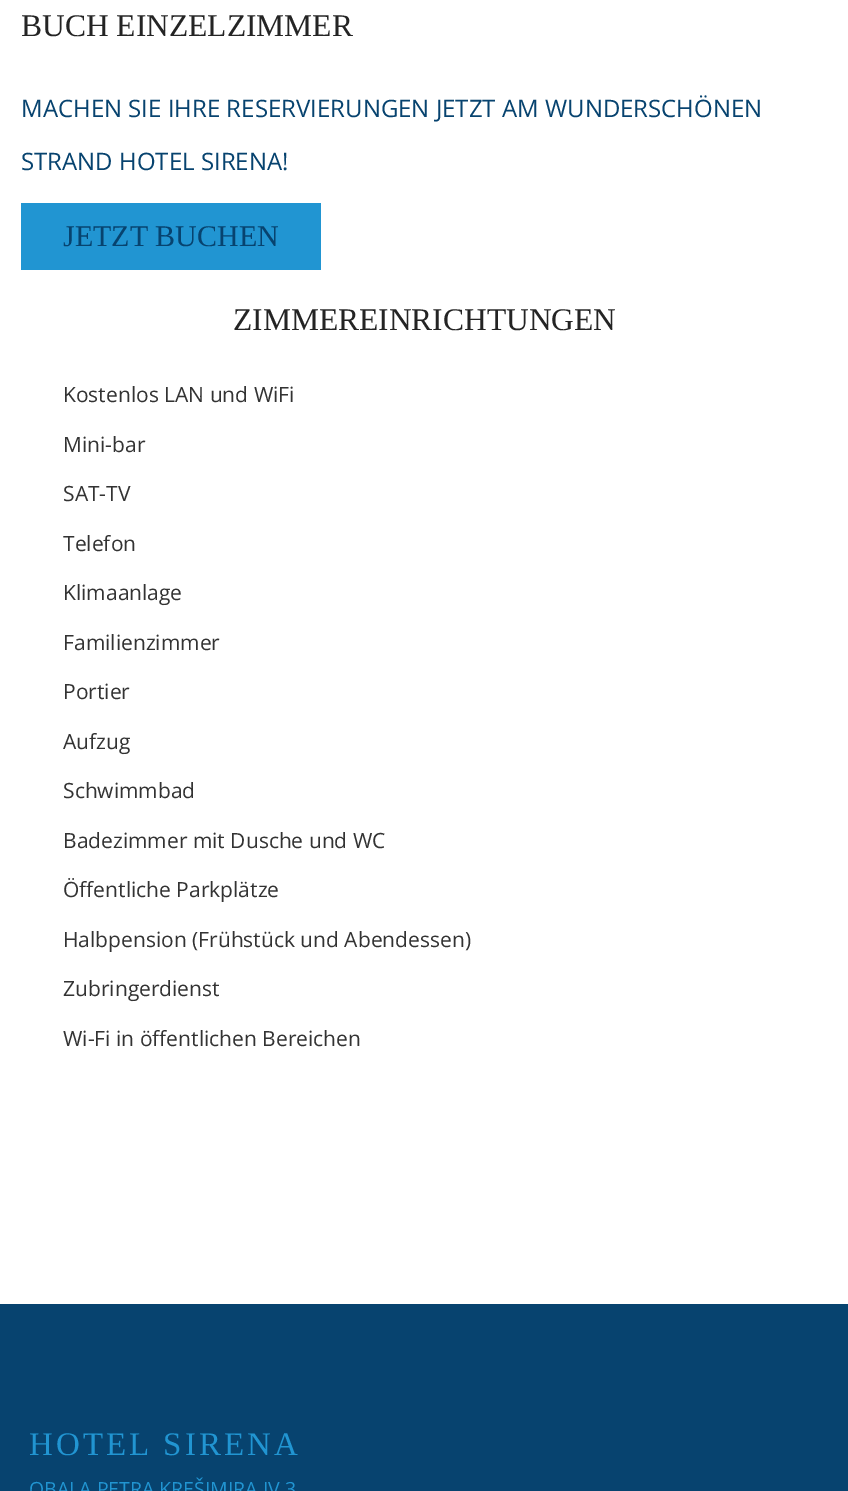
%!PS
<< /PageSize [848 1491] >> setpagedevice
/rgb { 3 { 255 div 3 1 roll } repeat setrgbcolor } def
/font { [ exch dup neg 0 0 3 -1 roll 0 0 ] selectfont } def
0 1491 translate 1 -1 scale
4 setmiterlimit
255 255 255 rgb
0 0 848 1491 rectfill
33 149 210 rgb
21 203 300 67 rectfill
7 67 111 rgb
0 1304 848 187 rectfill
/LiberationSerif-Regular 31.5 font
36 36 36 rgb
21 36 moveto (BUCH EINZELZIMMER) show
/OpenSans-Regular 24 font
7 67 111 rgb
21 117 moveto (MACHEN SIE IHRE RESERVIERUNGEN JETZT AM WUNDERSCHÖNEN) show
21 170 moveto (STRAND HOTEL SIRENA!) show
/LiberationSerif-Regular 30 font
63 246 moveto (JETZT BUCHEN) show
/LiberationSerif-Regular 31.5 font
36 36 36 rgb
233 330 moveto (ZIMMEREINRICHTUNGEN) show
/OpenSans-Regular 21 font
51 51 51 rgb
[
  [(Kostenlos LAN und WiFi) 63 402]
  [(Mini-bar) 63 452]
  [(SAT-TV) 63 501]
  [(Telefon) 63 551]
  [(Klimaanlage) 63 600]
  [(Familienzimmer) 63 650]
  [(Portier) 63 699]
  [(Aufzug) 63 749]
  [(Schwimmbad) 63 798]
  [(Badezimmer mit Dusche und WC) 63 848]
  [(Öffentliche Parkplätze) 63 897]
  [(Halbpension \(Frühstück und Abendessen\)) 63 947]
  [(Zubringerdienst) 63 996]
  [(Wi-Fi in öffentlichen Bereichen) 63 1046]
] { aload pop moveto show } forall
/LiberationSerif-Regular 33 font
33 149 210 rgb
29 1455 moveto 3 0 (HOTEL SIRENA) ashow
/OpenSans-Regular 19.5 font
29 1496 moveto (OBALA PETRA KREŠIMIRA IV 3) show
showpage
